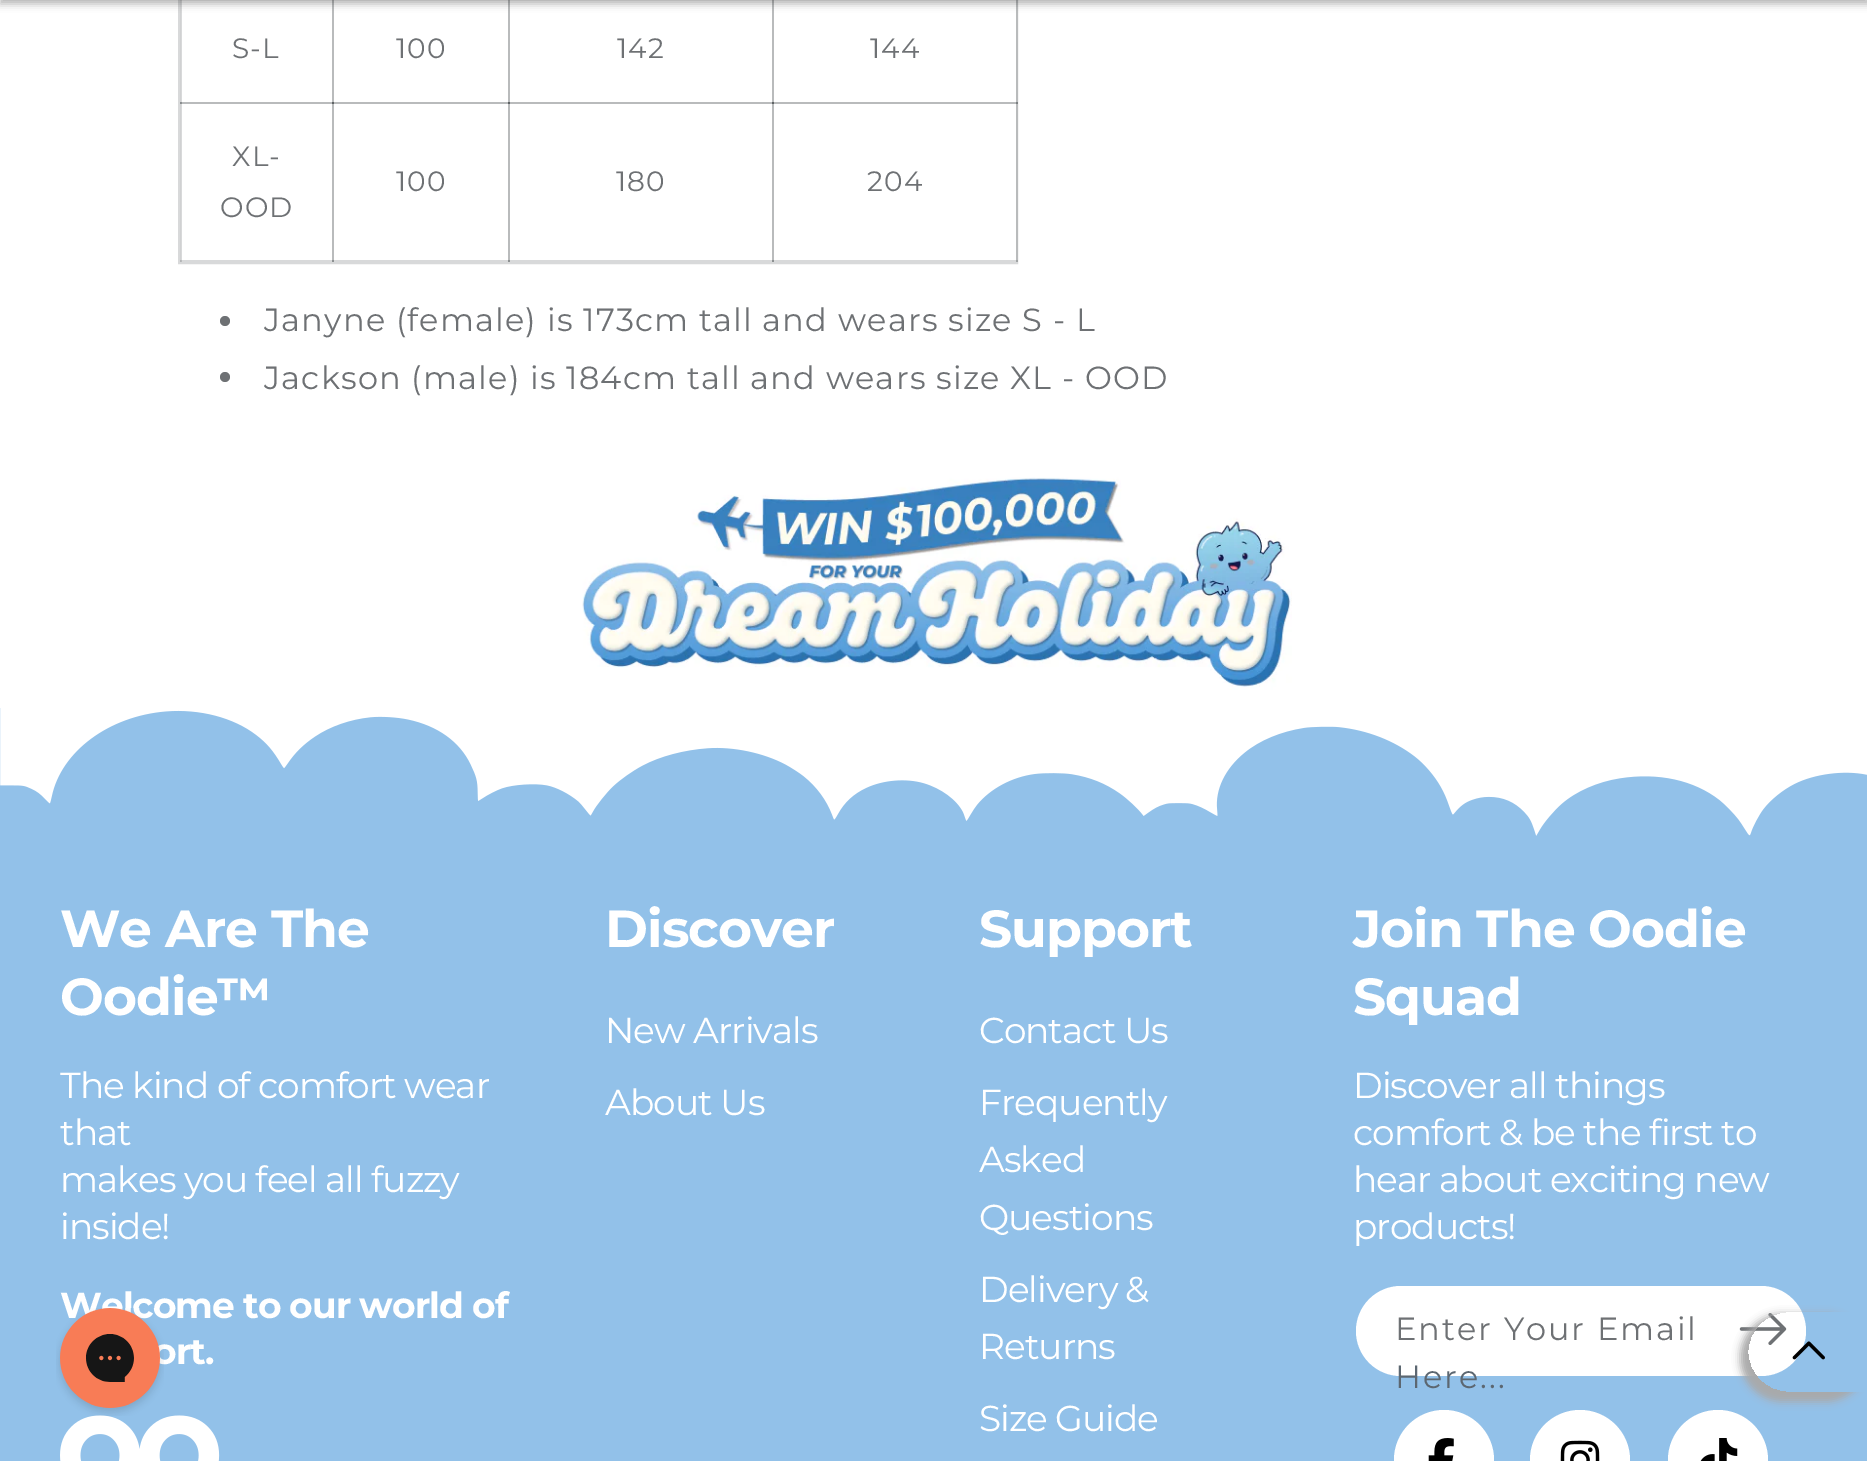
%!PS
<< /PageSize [1867 1461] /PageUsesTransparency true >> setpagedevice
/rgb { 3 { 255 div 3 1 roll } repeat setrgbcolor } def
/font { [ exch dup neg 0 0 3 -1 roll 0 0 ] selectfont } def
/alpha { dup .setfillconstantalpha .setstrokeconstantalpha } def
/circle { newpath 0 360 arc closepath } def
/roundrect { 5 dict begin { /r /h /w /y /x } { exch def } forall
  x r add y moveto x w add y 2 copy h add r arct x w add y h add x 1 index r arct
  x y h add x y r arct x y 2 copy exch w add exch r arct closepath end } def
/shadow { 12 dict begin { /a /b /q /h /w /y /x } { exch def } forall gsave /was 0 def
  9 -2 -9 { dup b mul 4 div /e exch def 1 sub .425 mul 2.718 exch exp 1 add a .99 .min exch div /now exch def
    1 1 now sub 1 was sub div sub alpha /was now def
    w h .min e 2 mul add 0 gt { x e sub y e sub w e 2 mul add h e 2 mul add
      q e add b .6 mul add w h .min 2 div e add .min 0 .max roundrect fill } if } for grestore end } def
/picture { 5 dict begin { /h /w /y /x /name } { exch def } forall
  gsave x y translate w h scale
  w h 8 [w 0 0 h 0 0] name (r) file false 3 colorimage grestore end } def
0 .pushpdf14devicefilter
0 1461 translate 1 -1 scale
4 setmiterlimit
255 255 255 rgb
0 0 1867 1461 rectfill
216 217 218 rgb
2 setlinewidth
179 -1 838 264 rectstroke
0.2 alpha
[
  [772 102 246 2 61 66 70]
  [1016 102 2 160 61 66 70]
  [1016 0 2 104 61 66 70]
  [772 260 246 2 61 66 70]
  [772 102 2 160 61 66 70]
  [508 102 266 2 61 66 70]
  [772 102 2 160 61 66 70]
  [772 102 246 2 61 66 70]
  [772 0 2 104 61 66 70]
  [772 0 2 104 61 66 70]
  [508 260 266 2 61 66 70]
  [508 102 2 160 61 66 70]
  [332 102 178 2 61 66 70]
  [508 102 2 160 61 66 70]
  [508 102 266 2 61 66 70]
  [508 0 2 104 61 66 70]
  [508 0 2 104 61 66 70]
  [332 260 178 2 61 66 70]
  [332 102 2 160 61 66 70]
  [180 102 154 2 61 66 70]
  [332 102 2 160 61 66 70]
  [332 102 178 2 61 66 70]
  [332 0 2 104 61 66 70]
  [332 0 2 104 61 66 70]
  [180 260 154 2 61 66 70]
  [180 102 2 160 61 66 70]
  [180 102 154 2 61 66 70]
  [180 0 2 104 61 66 70]
] { aload pop rgb rectfill } forall
1 alpha
0 0 0 rgb
0 -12 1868 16 0 4 0.28 shadow
110 113 116 rgb
225 321 5 circle fill
225 377 5 circle fill
(img/1.rgb) 582 477 710 213 picture
146 193 233 rgb
0 708 1867 753 rectfill
(img/2.rgb) 0 708 1867 128 picture
(img/3.rgb) 60 1415 160 46 picture
255 255 255 rgb
1356 1286 450 90 45 roundrect fill
(img/4.rgb) 1739 1313 48 32 picture
1444 1460 50 circle fill
(img/5.rgb) 1428 1438 26 23 picture
1580 1460 50 circle fill
(img/6.rgb) 1560 1440 40 21 picture
1718 1460 50 circle fill
(img/7.rgb) 1700 1438 38 23 picture
gsave
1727 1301 moveto 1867 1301 lineto 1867 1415 lineto 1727 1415 lineto closepath 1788 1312 moveto 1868 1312 lineto 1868 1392 lineto 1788 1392 lineto 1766 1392 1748 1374 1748 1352 curveto 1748 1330 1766 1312 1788 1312 curveto closepath eoclip newpath
169 169 169 rgb
1740 1314 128 88 44 4 1 shadow
grestore
(img/8.rgb) 1792 1341 33 19 picture
/Montserrat-Regular 28 font
110 113 116 rgb
232 58 moveto 1.2 0 (S-L) ashow
396 58 moveto 1.2 0 (100) ashow
617 58 moveto 1.2 0 (142) ashow
870 58 moveto 1.2 0 (144) ashow
232 166 moveto 1.2 0 (XL-) ashow
220 217 moveto 1.2 0 (OOD) ashow
396 191 moveto 1.2 0 (100) ashow
616 191 moveto 1.2 0 (180) ashow
867 191 moveto 1.2 0 (204) ashow
/Montserrat-Regular 32 font
264 331 moveto 1.2 0 (Janyne \(female\) is 173cm tall and wears size S - L) ashow
264 389 moveto 1.2 0 (Jackson \(male\) is 184cm tall and wears size XL - OOD) ashow
/Montserrat-Bold 52 font
255 255 255 rgb
60 947 moveto -1 0 (We Are The) ashow
60 1015 moveto -1 0 (Oodie™) ashow
/Montserrat-Regular 36 font
60 1098 moveto -1 0 (The kind of comfort wear) ashow
60 1145 moveto -1 0 (that) ashow
60 1192 moveto -1 0 (makes you feel all fuzzy) ashow
60 1239 moveto -1 0 (inside!) ashow
/Montserrat-Bold 36 font
60 1318 moveto -1 0 (Welcome to our world of) ashow
153 1364 moveto -1 0 (ort.) ashow
/Montserrat-Bold 52 font
605 947 moveto -1 0 (Discover) ashow
/Montserrat-Regular 36 font
605 1043 moveto -1 0 (New Arrivals) ashow
605 1115 moveto -1 0 (About Us) ashow
/Montserrat-Bold 52 font
979 947 moveto -1 0 (Support) ashow
/Montserrat-Regular 36 font
979 1043 moveto -1 0 (Contact Us) ashow
979 1115 moveto -1 0 (Frequently) ashow
979 1172 moveto -1 0 (Asked) ashow
979 1230 moveto -1 0 (Questions) ashow
979 1302 moveto -1 0 (Delivery &) ashow
979 1359 moveto -1 0 (Returns) ashow
979 1431 moveto -1 0 (Size Guide) ashow
/Montserrat-Bold 52 font
1353 947 moveto -1 0 (Join The Oodie) ashow
1353 1015 moveto -1 0 (Squad) ashow
/Montserrat-Regular 36 font
1353 1098 moveto -1 0 (Discover all things) ashow
1353 1145 moveto -1 0 (comfort & be the first to) ashow
1353 1192 moveto -1 0 (hear about exciting new) ashow
1353 1239 moveto -1 0 (products!) ashow
/Montserrat-Regular 32 font
110 113 116 rgb
1395 1340 moveto 2 0 (Enter Your Email) ashow
92 103 113 rgb
1395 1388 moveto 2 0 (Here...) ashow
(img/9.rgb) 56 1308 108 108 picture
.poppdf14devicefilter showpage
